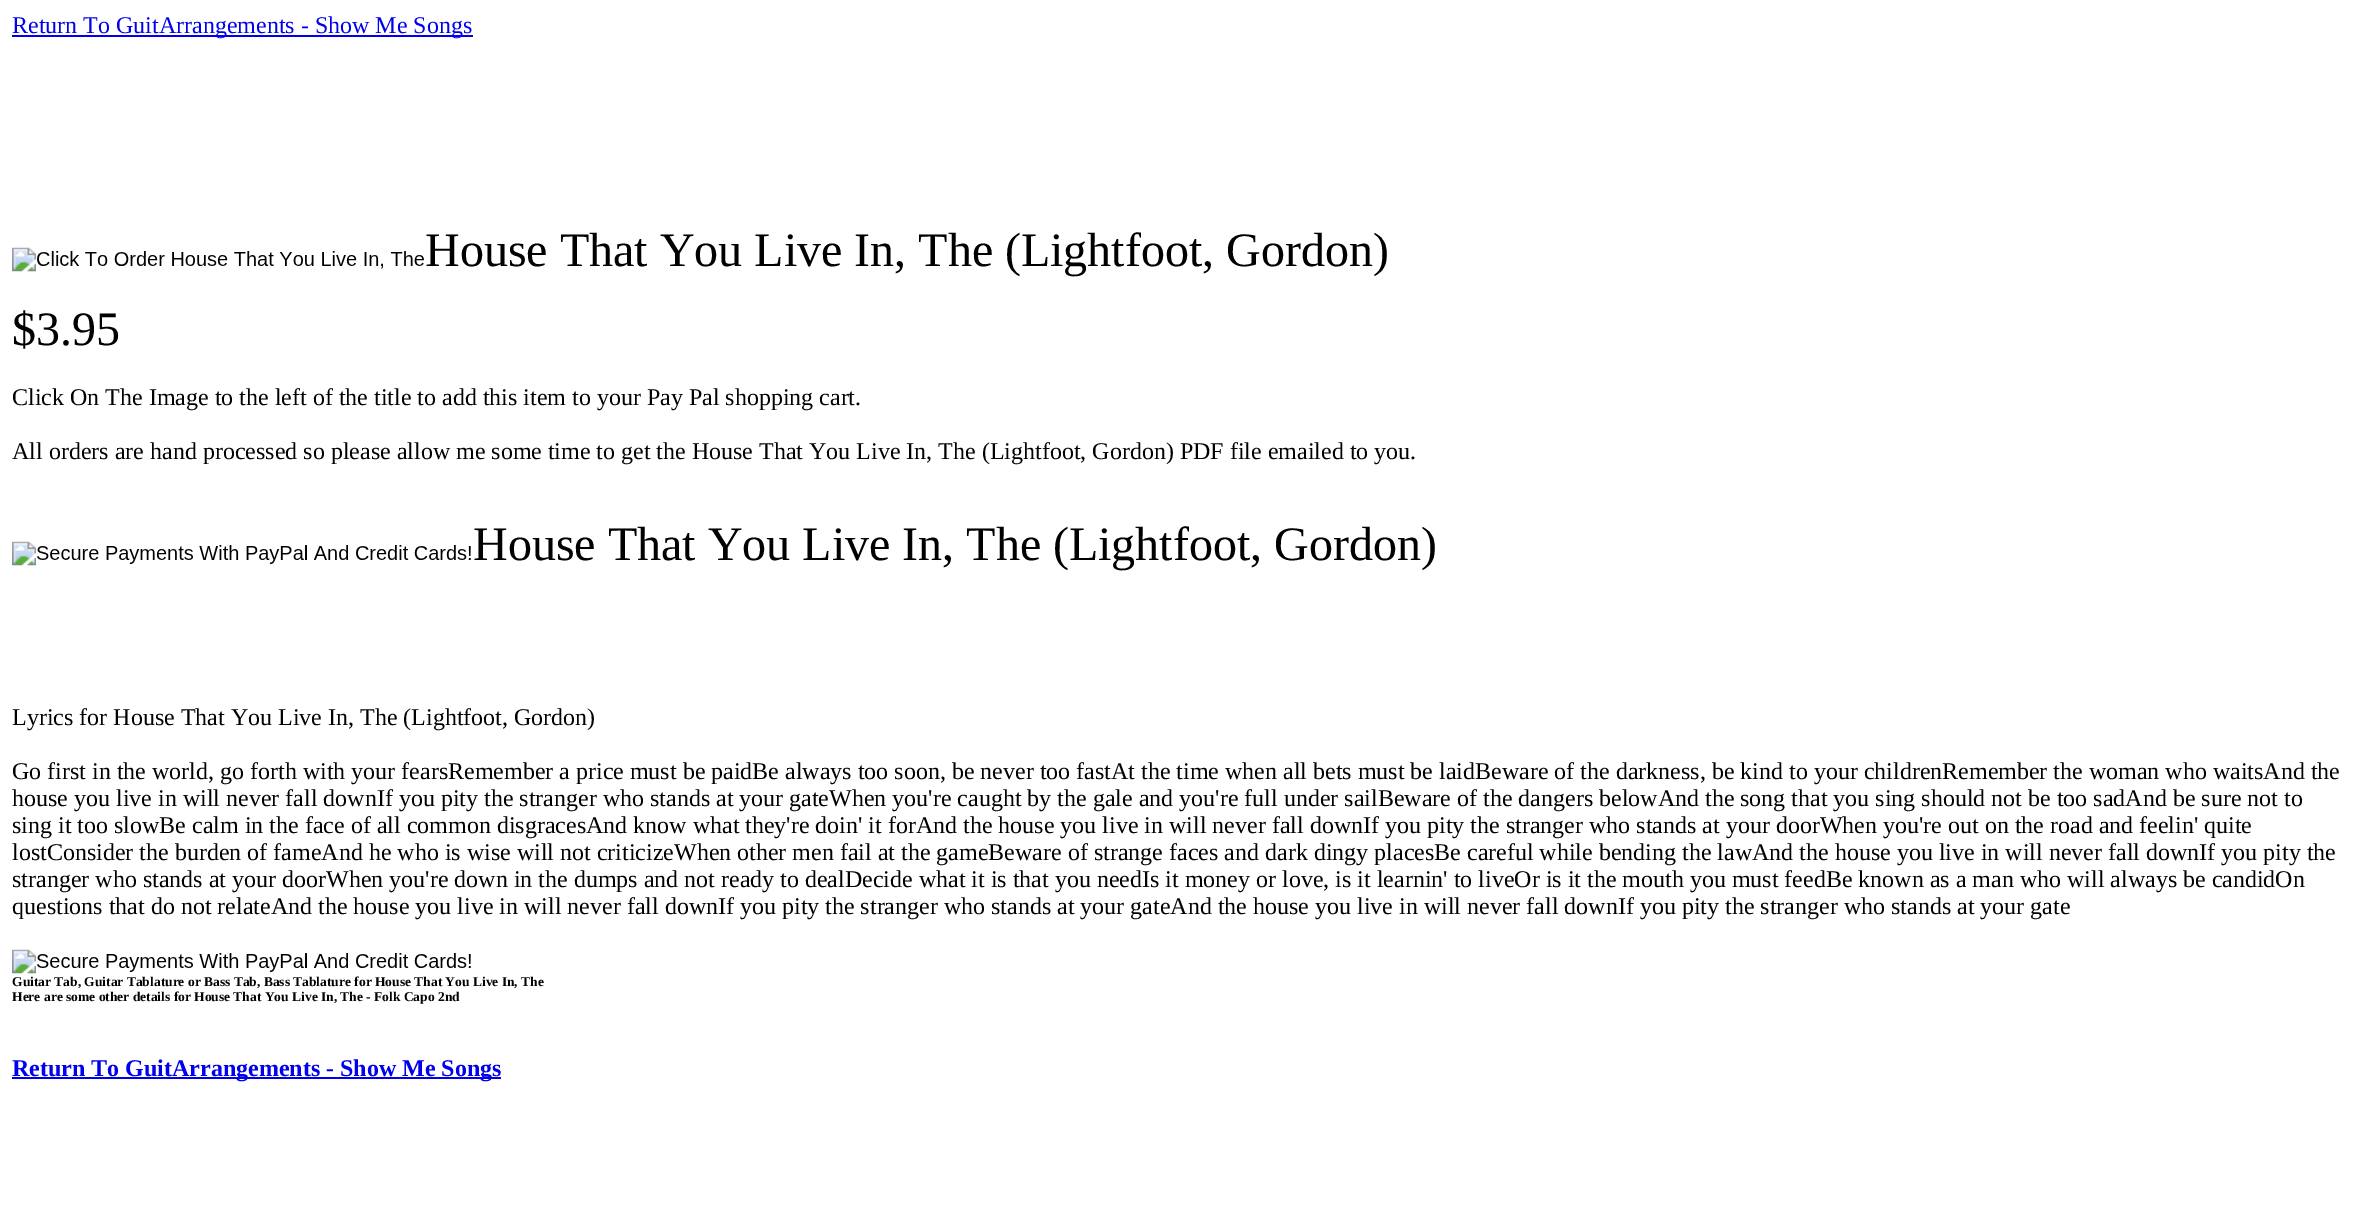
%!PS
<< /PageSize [2356 1208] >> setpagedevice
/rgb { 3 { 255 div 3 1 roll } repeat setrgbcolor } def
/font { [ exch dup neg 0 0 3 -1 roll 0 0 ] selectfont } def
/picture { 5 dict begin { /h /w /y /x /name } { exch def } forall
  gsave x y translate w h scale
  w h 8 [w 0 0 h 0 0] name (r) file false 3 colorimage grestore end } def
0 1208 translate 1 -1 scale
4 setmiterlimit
255 255 255 rgb
0 0 2356 1208 rectfill
0 0 238 rgb
12 35 461 2 rectfill
(img/1.rgb) 12 247 412 25 picture
(img/2.rgb) 12 541 459 25 picture
(img/2.rgb) 12 949 459 25 picture
12 1077 489 2 rectfill
/LiberationSerif-Regular 24 font
12 33 moveto (Return To GuitArrangements - Show Me Songs) show
/LiberationSerif-Regular 48 font
0 0 0 rgb
425 266 moveto (House That You Live In, The \(Lightfoot, Gordon\)) show
12 345 moveto ($3.95) show
/LiberationSerif-Regular 24 font
12 405 moveto (Click On The Image to the left of the title to add this item to your Pay Pal shopping cart.) show
12 459 moveto (All orders are hand processed so please allow me some time to get the House That You Live In, The \(Lightfoot, Gordon\) PDF file emailed to you.) show
/LiberationSans-Regular 20 font
304 560 moveto (l) show
/LiberationSerif-Regular 48 font
473 560 moveto (House That You Live In, The \(Lightfoot, Gordon\)) show
/LiberationSerif-Regular 24 font
[
  [(Lyrics for House That You Live In, The \(Lightfoot, Gordon\)) 12 725]
  [(Go first in the world, go forth with your fearsRemember a price must be paidBe always too soon, be never too fastAt the time when all bets must be laidBeware of the darkness, be kind to your childrenRemember the woman who waitsAnd the) 12 779]
  [(house you live in will never fall downIf you pity the stranger who stands at your gateWhen you're caught by the gale and you're full under sailBeware of the dangers belowAnd the song that you sing should not be too sadAnd be sure not to) 12 806]
  [(sing it too slowBe calm in the face of all common disgracesAnd know what they're doin' it forAnd the house you live in will never fall downIf you pity the stranger who stands at your doorWhen you're out on the road and feelin' quite) 12 833]
  [(lostConsider the burden of fameAnd he who is wise will not criticizeWhen other men fail at the gameBeware of strange faces and dark dingy placesBe careful while bending the lawAnd the house you live in will never fall downIf you pity the) 12 860]
  [(stranger who stands at your doorWhen you're down in the dumps and not ready to dealDecide what it is that you needIs it money or love, is it learnin' to liveOr is it the mouth you must feedBe known as a man who will always be candidOn) 12 887]
  [(questions that do not relateAnd the house you live in will never fall downIf you pity the stranger who stands at your gateAnd the house you live in will never fall downIf you pity the stranger who stands at your gate) 12 914]
] { aload pop moveto show } forall
/LiberationSans-Regular 20 font
304 968 moveto (l) show
/LiberationSerif-Bold 13.5 font
12 986 moveto (Guitar Tab, Guitar Tablature or Bass Tab, Bass Tablature for House That You Live In, The) show
12 1001 moveto (Here are some other details for House That You Live In, The - Folk Capo 2nd) show
/LiberationSerif-Bold 24 font
0 0 238 rgb
12 1076 moveto (Return To GuitArrangements - Show Me Songs) show
showpage
